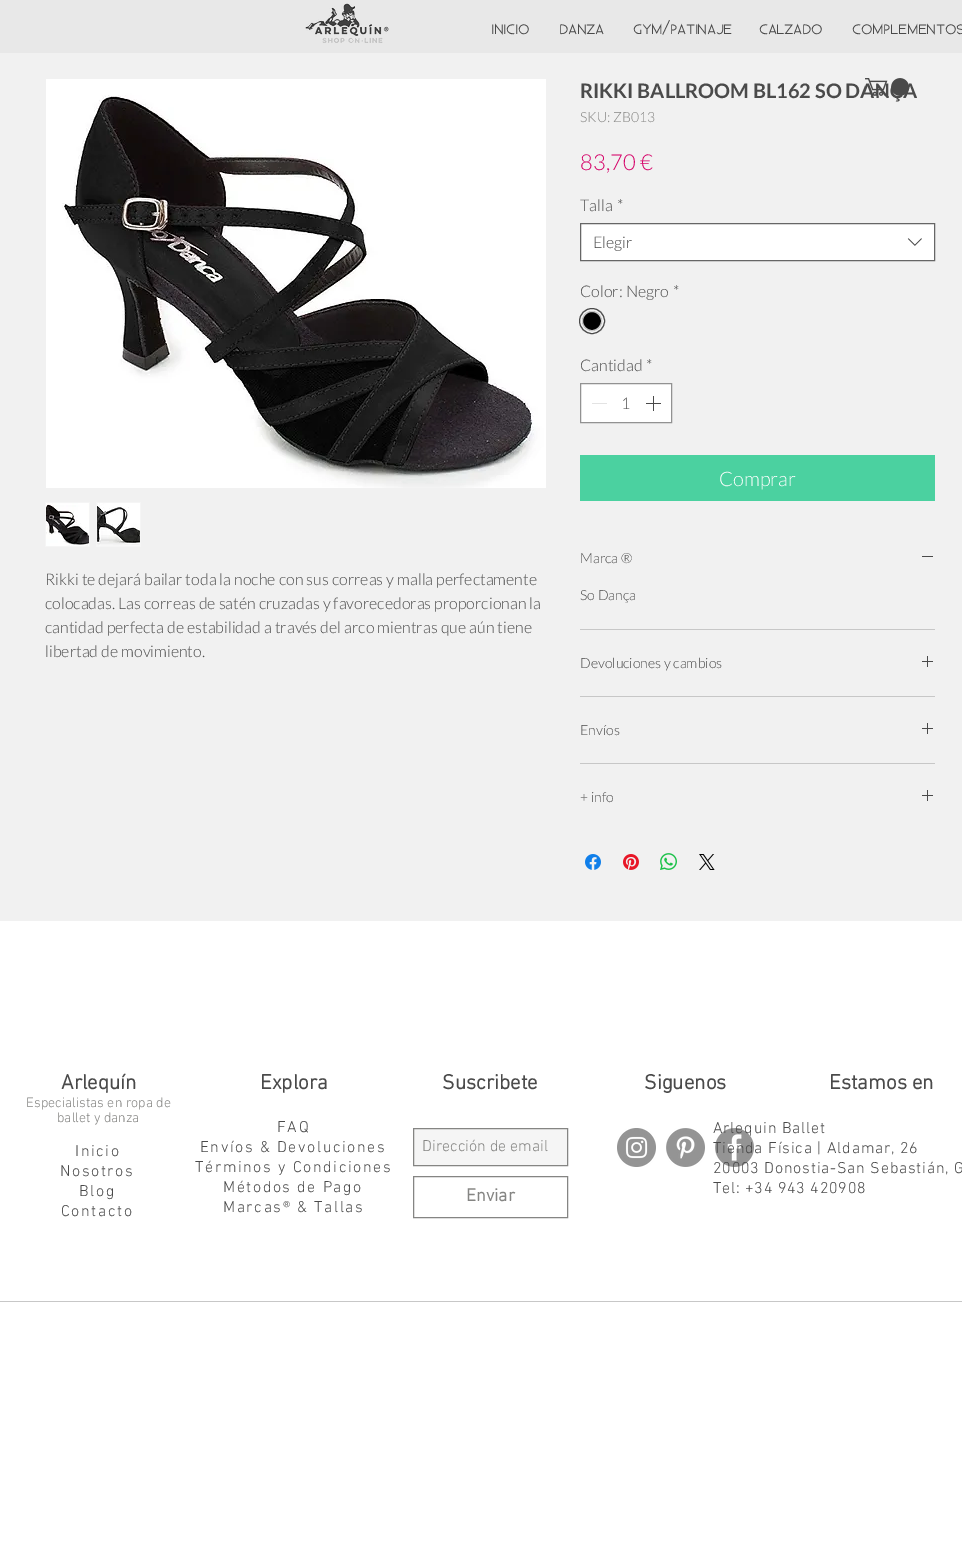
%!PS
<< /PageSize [962 1565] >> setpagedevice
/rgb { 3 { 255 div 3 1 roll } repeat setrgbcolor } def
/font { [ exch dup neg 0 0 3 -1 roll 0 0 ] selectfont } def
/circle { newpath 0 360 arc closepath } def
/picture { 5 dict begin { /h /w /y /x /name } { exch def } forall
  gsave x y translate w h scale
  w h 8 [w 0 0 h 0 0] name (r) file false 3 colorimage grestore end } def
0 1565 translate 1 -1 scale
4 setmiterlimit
255 255 255 rgb
0 0 962 1565 rectfill
232 232 232 rgb
0 0 962 53 rectfill
(img/1.rgb) 305 3 84 40 picture
241 241 241 rgb
0 53 962 868 rectfill
(img/3.rgb) 46 79 500 409 picture
245 245 245 rgb
45 502 45 45 rectfill
(img/4.rgb) 46 503 43 43 picture
96 502 45 45 rectfill
(img/5.rgb) 97 503 43 43 picture
255 255 255 rgb
580.5 223.5 moveto 934.5 223.5 lineto 934.5 260.5 lineto 580.5 260.5 lineto closepath gsave fill grestore
102 102 102 rgb
stroke
(img/6.rgb) 907 238 15 8 picture
74 74 74 rgb
592 321 12.5 circle stroke
0 0 0 rgb
592 321 9.5 circle gsave fill grestore
201 201 201 rgb
stroke
255 255 255 rgb
580.5 383.5 moveto 671.5 383.5 lineto 671.5 422.5 lineto 580.5 422.5 lineto closepath gsave fill grestore
146 146 146 rgb
stroke
227 227 227 rgb
592 403 15 1 rectfill
(img/7.rgb) 646 396 15 15 picture
[
  [580 455 355 46 75 209 160]
  [580 629 355 1 199 199 199]
  [922 556 11 1 74 74 74]
  [580 696 355 1 199 199 199]
] { aload pop rgb rectfill } forall
(img/8.rgb) 922 656 11 11 picture
580 763 355 1 rectfill
(img/8.rgb) 922 723 11 11 picture
(img/8.rgb) 922 790 11 11 picture
(img/9.rgb) 585 854 16 16 picture
(img/10.rgb) 623 854 16 16 picture
(img/11.rgb) 660 853 17 17 picture
(img/12.rgb) 699 854 16 16 picture
245 245 245 rgb
413.5 1128.5 moveto 567.5 1128.5 lineto 567.5 1165.5 lineto 413.5 1165.5 lineto closepath gsave fill grestore
133 133 131 rgb
stroke
413.5 1176.5 154 41 rectstroke
(img/13.rgb) 617 1128 39 39 picture
(img/14.rgb) 666 1128 39 39 picture
(img/15.rgb) 715 1128 39 39 picture
199 199 199 rgb
0 1301 962 1 rectfill
/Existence-Bold 17 font
74 74 74 rgb
[
  [(INICIO) 491 34]
  [(DANZA) 559 34]
  [(GYM/PATINAJE) 633 34]
  [(CALZADO) 759 34]
  [(COMPLEMENTOS) 852 34]
] { aload pop moveto show } forall
/Lato-Light 16 font
[
  [(Rikki te dejará bailar toda la noche con sus correas y malla perfectamente) 45 585]
  [(colocadas. Las correas de satén cruzadas y favorecedoras proporcionan la) 45 609]
  [(cantidad perfecta de estabilidad a través del arco mientras que aún tiene) 45 633]
  [(libertad de movimiento.) 45 657]
] { aload pop moveto show } forall
/Lato-Bold 20 font
580 98 moveto (RIKKI BALLROOM BL162 SO DANÇA) show
(img/2.rgb) 865 78 44 18 picture
/Lato-Light 14 font
133 133 131 rgb
580 122 moveto (SKU: ZB013) show
/Lato-Light 22 font
214 4 106 rgb
580 170 moveto (83,70 €) show
/Lato-Light 16 font
74 74 74 rgb
580 211 moveto (Talla) show
617 211 moveto (*) show
68 68 68 rgb
593 248 moveto (Elegir) show
74 74 74 rgb
[
  [(Color: Negro) 580 297]
  [(*) 673 297]
  [(Cantidad) 580 371]
  [(*) 646 371]
  [(1) 621 409]
] { aload pop moveto show } forall
/Lato-Light 20 font
255 255 255 rgb
719 486 moveto (Comprar) show
/Lato-Light 14 font
74 74 74 rgb
[
  [(Marca ®) 580 563]
  [(So Dança) 580 600]
  [(Devoluciones y cambios) 580 668]
  [(Envíos) 580 735]
  [(+ info) 580 802]
] { aload pop moveto show } forall
/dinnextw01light-Bold 21 font
61 1089 moveto (Arlequín) show
/dinnextw01light-Light 14 font
133 133 131 rgb
26 1107 moveto (Especialistas en ropa de) show
57 1122 moveto (ballet y danza) show
/dinnextw01light-Light 16 font
74 74 74 rgb
75 1156 moveto 1.6 0 (Inicio) ashow
60 1176 moveto 1.6 0 (Nosotros) ashow
79 1196 moveto 1.6 0 (Blog) ashow
61 1216 moveto 1.6 0 (Contacto) ashow
/dinnextw01light-Bold 21 font
260 1089 moveto (Explora) show
/dinnextw01light-Light 16 font
277 1132 moveto 1.6 0 (FAQ) ashow
200 1152 moveto 1.6 0 (Envíos & Devoluciones) ashow
195 1172 moveto 1.6 0 (Términos y Condiciones) ashow
223 1192 moveto 1.6 0 (Métodos de Pago) ashow
223 1212 moveto 1.6 0 (Marcas® & Tallas) ashow
/dinnextw01light-Bold 21 font
442 1089 moveto (Suscribete) show
/dinnextw01light-Light 16 font
133 133 131 rgb
422 1151 moveto (Dirección de email) show
/dinnextw01light-Bold 18 font
466 1201 moveto (Enviar) show
/dinnextw01light-Bold 21 font
74 74 74 rgb
644 1089 moveto (Siguenos) show
829 1089 moveto (Estamos en) show
/dinnextw01light-Light 16 font
713 1133 moveto 0.8 0 (Arlequin Ballet) ashow
713 1153 moveto 0.8 0 (Tienda Física | Aldamar, 26) ashow
713 1173 moveto 0.8 0 (20003 Donostia-San Sebastián, G) ashow
713 1193 moveto 0.8 0 (Tel: +34 943 420908) ashow
showpage
